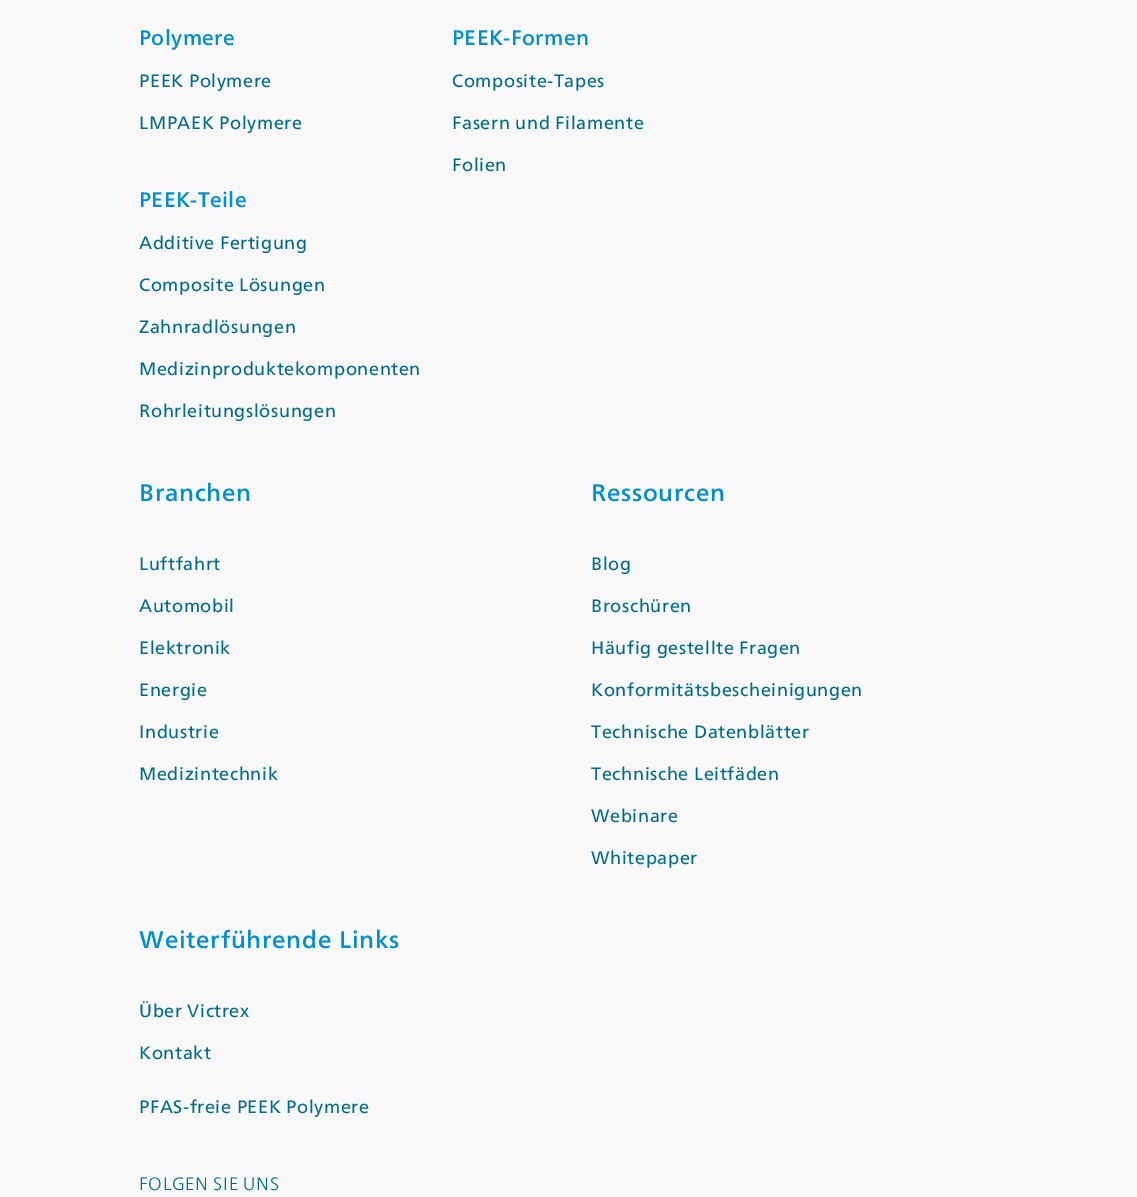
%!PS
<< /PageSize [1137 1197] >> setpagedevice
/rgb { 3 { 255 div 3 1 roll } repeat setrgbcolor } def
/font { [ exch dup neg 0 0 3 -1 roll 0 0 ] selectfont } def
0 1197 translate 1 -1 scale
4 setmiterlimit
248 248 248 rgb
0 0 1137 1197 rectfill
/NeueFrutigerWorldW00-Medium 21 font
0 143 208 rgb
139 45 moveto 0.4 0 (Polymere) ashow
/NeueFrutigerWorldW00-Regular 18 font
0 107 141 rgb
139 87 moveto 0.6 0 (PEEK Polymere) ashow
139 129 moveto 0.6 0 (LMPAEK Polymere) ashow
/NeueFrutigerWorldW00-Medium 21 font
0 143 208 rgb
139 207 moveto 0.4 0 (PEEK-Teile) ashow
/NeueFrutigerWorldW00-Regular 18 font
0 107 141 rgb
139 249 moveto 0.6 0 (Additive Fertigung) ashow
139 291 moveto 0.6 0 (Composite Lösungen) ashow
139 333 moveto 0.6 0 (Zahnradlösungen) ashow
139 375 moveto 0.6 0 (Medizinproduktekomponenten) ashow
139 417 moveto 0.6 0 (Rohrleitungslösungen) ashow
/NeueFrutigerWorldW00-Medium 21 font
0 143 208 rgb
452 45 moveto 0.4 0 (PEEK-Formen) ashow
/NeueFrutigerWorldW00-Regular 18 font
0 107 141 rgb
452 87 moveto 0.6 0 (Composite-Tapes) ashow
452 129 moveto 0.6 0 (Fasern und Filamente) ashow
452 171 moveto 0.6 0 (Folien) ashow
/NeueFrutigerWorldW00-Medium 24 font
0 143 208 rgb
139 501 moveto 0.75 0 (Branchen) ashow
/NeueFrutigerWorldW00-Regular 18 font
0 107 141 rgb
139 570 moveto 0.6 0 (Luftfahrt) ashow
139 612 moveto 0.6 0 (Automobil) ashow
139 654 moveto 0.6 0 (Elektronik) ashow
139 696 moveto 0.6 0 (Energie) ashow
139 738 moveto 0.6 0 (Industrie) ashow
139 780 moveto 0.6 0 (Medizintechnik) ashow
/NeueFrutigerWorldW00-Medium 24 font
0 143 208 rgb
591 501 moveto 0.75 0 (Ressourcen) ashow
/NeueFrutigerWorldW00-Regular 18 font
0 107 141 rgb
591 570 moveto 0.6 0 (Blog) ashow
591 612 moveto 0.6 0 (Broschüren) ashow
591 654 moveto 0.6 0 (Häufig gestellte Fragen) ashow
591 696 moveto 0.6 0 (Konformitätsbescheinigungen) ashow
591 738 moveto 0.6 0 (Technische Datenblätter) ashow
591 780 moveto 0.6 0 (Technische Leitfäden) ashow
591 822 moveto 0.6 0 (Webinare) ashow
591 864 moveto 0.6 0 (Whitepaper) ashow
/NeueFrutigerWorldW00-Medium 24 font
0 143 208 rgb
139 948 moveto 0.75 0 (Weiterführende Links) ashow
/NeueFrutigerWorldW00-Regular 18 font
0 107 141 rgb
139 1017 moveto 0.6 0 (Über Victrex) ashow
139 1059 moveto 0.6 0 (Kontakt) ashow
139 1113 moveto 0.6 0 (PFAS-freie PEEK Polymere) ashow
/NeueFrutigerWorldW00-Light 18 font
139 1190 moveto 0.6 0 (FOLGEN SIE UNS) ashow
showpage
